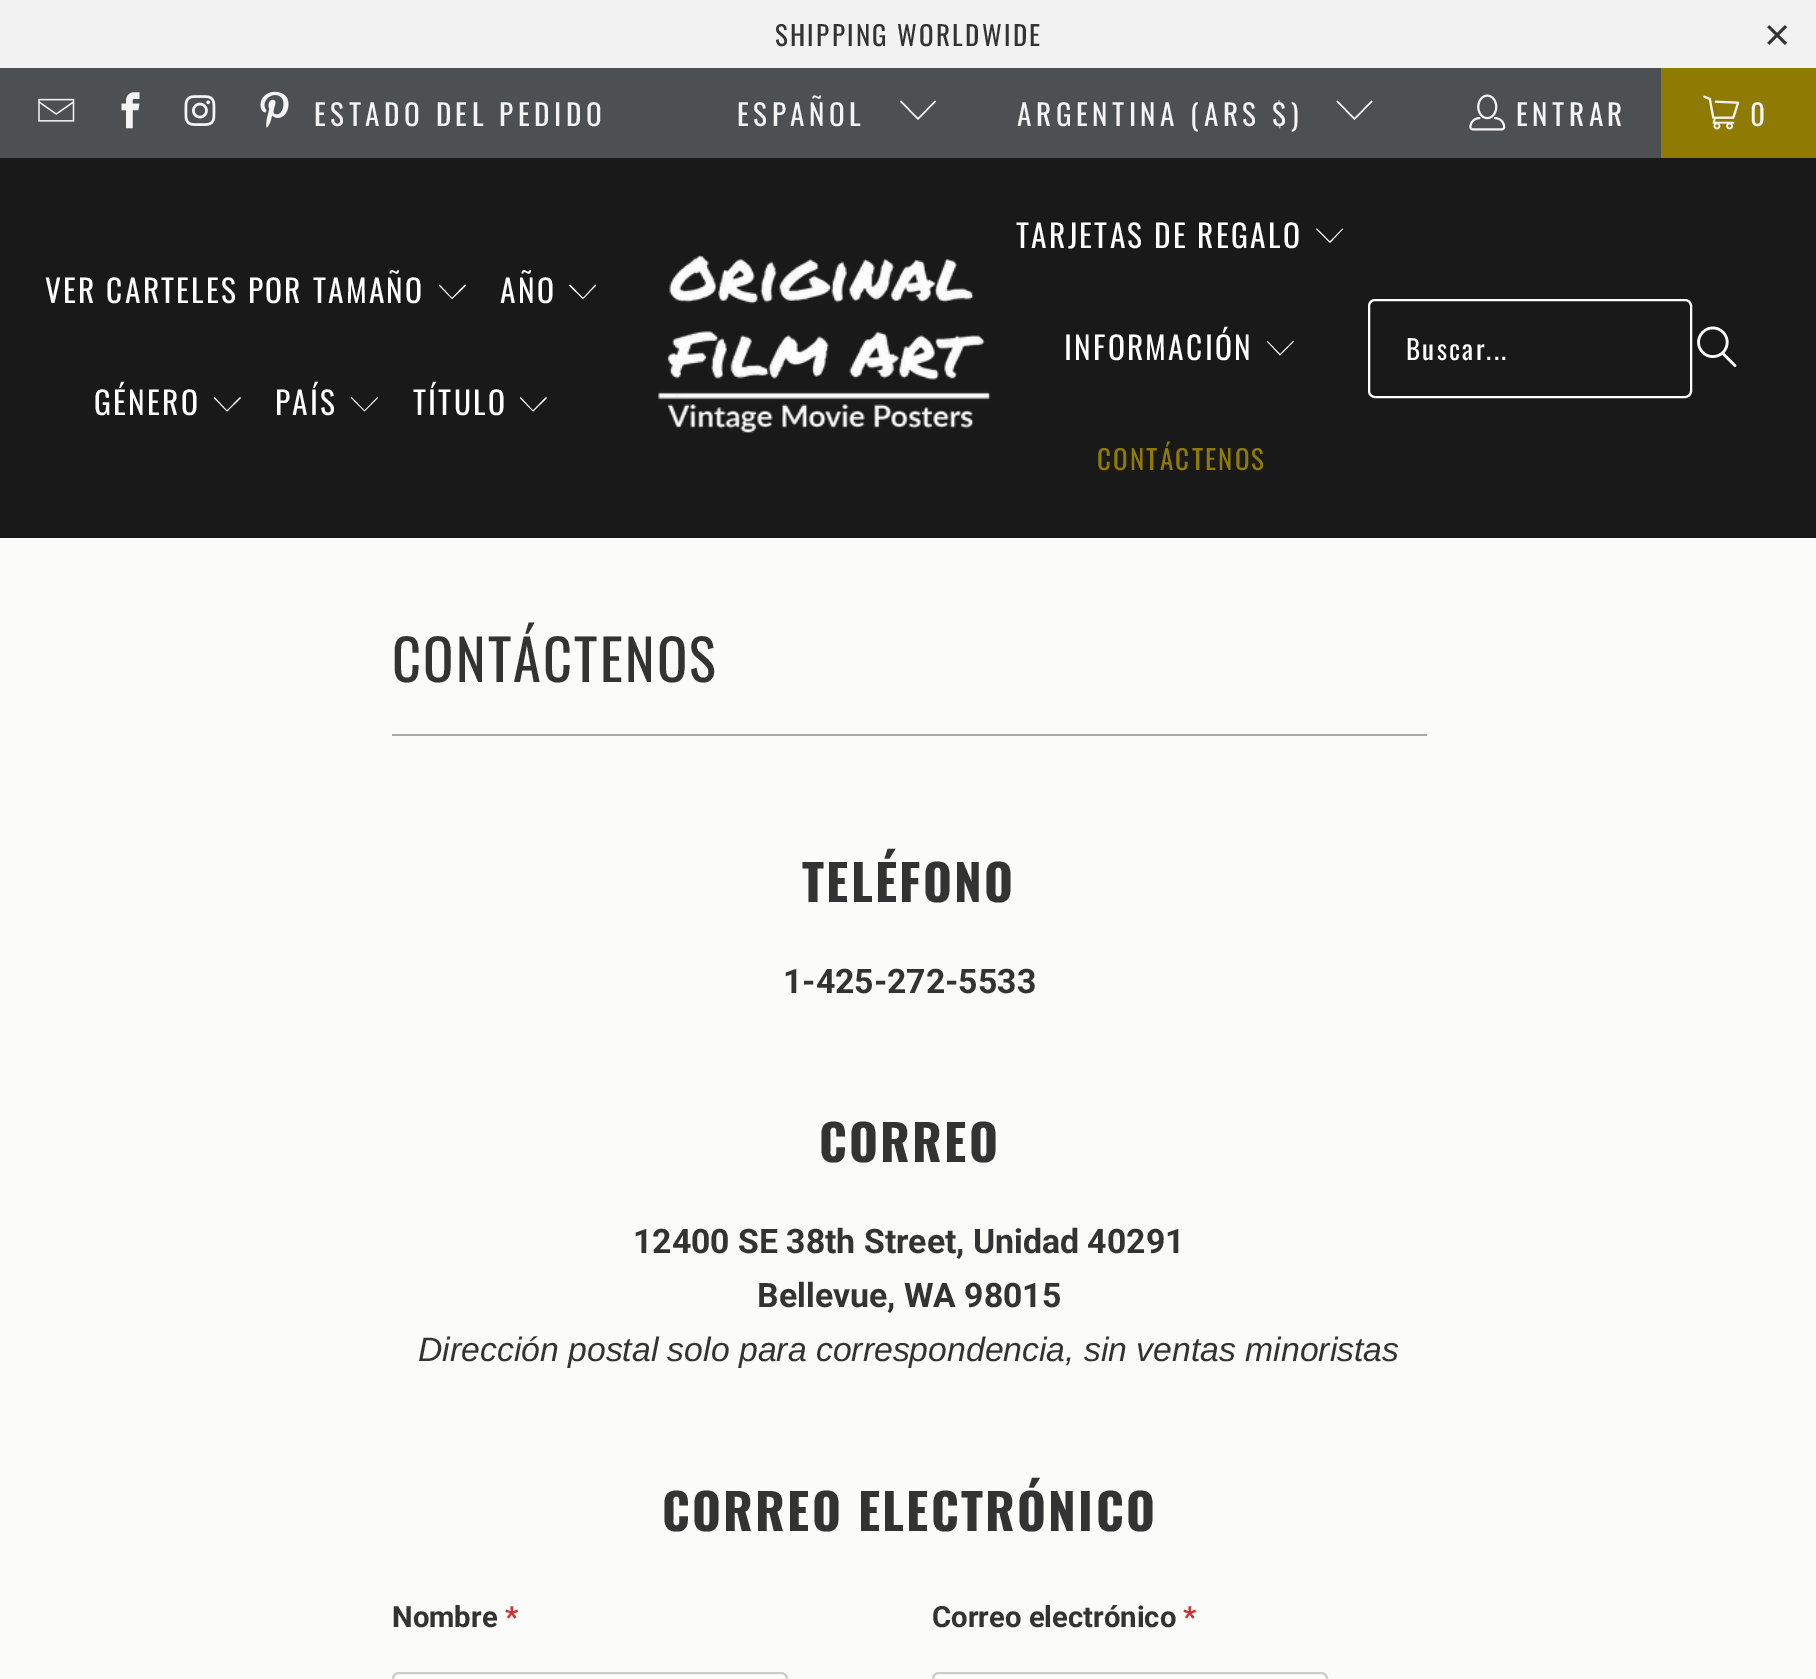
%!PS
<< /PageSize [1816 1679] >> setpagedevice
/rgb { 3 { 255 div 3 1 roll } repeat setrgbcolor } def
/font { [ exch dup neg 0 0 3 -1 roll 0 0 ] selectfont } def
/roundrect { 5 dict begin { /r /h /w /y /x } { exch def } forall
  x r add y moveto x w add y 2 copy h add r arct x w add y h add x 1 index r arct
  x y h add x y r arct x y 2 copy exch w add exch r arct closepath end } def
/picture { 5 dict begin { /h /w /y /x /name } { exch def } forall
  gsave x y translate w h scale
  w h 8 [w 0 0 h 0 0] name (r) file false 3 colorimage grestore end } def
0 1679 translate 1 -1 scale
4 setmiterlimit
251 251 249 rgb
0 0 1816 1679 rectfill
242 242 242 rgb
0 0 1816 68 rectfill
77 80 83 rgb
0 68 1661 90 rectfill
(img/1.rgb) 38 98 37 24 picture
(img/2.rgb) 121 92 19 37 picture
(img/3.rgb) 184 95 32 31 picture
(img/4.rgb) 260 91 29 37 picture
244 244 244 rgb
918 120 moveto 900 101.5 lineto 901 100.5 lineto 918 118 lineto 935 100.5 lineto 936 101.5 lineto closepath fill
1354.5 120 moveto 1336.5 101.5 lineto 1337.5 100.5 lineto 1354.5 118 lineto 1371.5 100.5 lineto 1372.5 101.5 lineto closepath fill
(img/5.rgb) 1469 94 37 37 picture
143 122 4 rgb
1661 68 155 90 rectfill
(img/6.rgb) 1703 95 37 35 picture
25 25 25 rgb
0 158 1816 380 rectfill
254 254 254 rgb
452 299 moveto 439 285.5 lineto 439.5 284.5 lineto 452 298 lineto 465 284.5 lineto 466 285.5 lineto closepath fill
583 299 moveto 569 285.5 lineto 570 284.5 lineto 583 298 lineto 595.5 284.5 lineto 596 285.5 lineto closepath fill
227 411.5 moveto 214 398 lineto 214.5 397 lineto 227 410.5 lineto 240 397 lineto 241 398 lineto closepath fill
364.5 411.5 moveto 351 398 lineto 351.5 397 lineto 364.5 410.5 lineto 377.5 397 lineto 378 398 lineto closepath fill
533 411.5 moveto 520 398 lineto 520.5 397 lineto 533 410.5 lineto 546 397 lineto 547 398 lineto closepath fill
(img/7.rgb) 658 254 333 180 picture
1330 243 moveto 1316 229 lineto 1317 228.5 lineto 1330 241.5 lineto 1342.5 228.5 lineto 1343 229 lineto closepath fill
1280 355.5 moveto 1267 341.5 lineto 1267.5 341 lineto 1280 354 lineto 1293 341 lineto 1294 341.5 lineto closepath fill
2 setlinewidth
1369 300 322 97 6 roundrect stroke
(img/8.rgb) 1697 326 40 41 picture
170 170 170 rgb
392 734 1035 2 rectfill
255 255 255 rgb
393 1673 394 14 6 roundrect gsave fill grestore
204 204 204 rgb
stroke
255 255 255 rgb
933 1673 394 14 6 roundrect gsave fill grestore
204 204 204 rgb
stroke
/Oswald-Regular 27 font
51 51 51 rgb
775 46 moveto 2.25 0 (SHIPPING WORLDWIDE) ashow
/LiberationSans-Regular 45 font
1764 50 moveto 2.25 0 (×) ashow
/Oswald-Regular 29.25 font
244 244 244 rgb
314 126 moveto 4.5 0 (ESTADO DEL PEDIDO) ashow
737 126 moveto 4.5 0 (ESPAÑOL) ashow
1017 126 moveto 4.5 0 (ARGENTINA \(ARS $\)) ashow
1516 126 moveto 4.5 0 (ENTRAR) ashow
1750 126 moveto 4.5 0 (0) ashow
/Oswald-Regular 31.5 font
254 254 254 rgb
45 303 moveto 2.25 0 (VER CARTELES POR TAMAÑO) ashow
500 303 moveto 2.25 0 (AÑO) ashow
94 415 moveto 2.25 0 (GÉNERO) ashow
275 415 moveto 2.25 0 (PAÍS) ashow
413 415 moveto 2.25 0 (TÍTULO) ashow
1016 248 moveto 2.25 0 (TARJETAS DE REGALO) ashow
1064 360 moveto 2.25 0 (INFORMACIÓN) ashow
/Oswald-Regular 27 font
143 122 4 rgb
1097 470 moveto 2.25 0 (CONTÁCTENOS) ashow
254 254 254 rgb
1406 360 moveto 2.25 0 (Buscar...) ashow
/Oswald-Regular 56.25 font
51 51 51 rgb
392 682 moveto 2.25 0 (CONTÁCTENOS) ashow
/Oswald-Bold 49.5 font
802 902 moveto 2.25 0 (TELÉFONO) ashow
/Roboto-Bold 33.75 font
783 993 moveto (1-425-272-5533) show
/Oswald-Bold 49.5 font
819 1162 moveto 2.25 0 (CORREO) ashow
/Roboto-Bold 33.75 font
633 1253 moveto (12400 SE 38th Street, Unidad 40291) show
757 1307 moveto (Bellevue, WA 98015) show
/LiberationSans-Italic 33.75 font
418 1361 moveto (Dirección postal solo para correspondencia, sin ventas minoristas) show
/Oswald-Bold 49.5 font
662 1531 moveto 2.25 0 (CORREO ELECTRÓNICO) ashow
/Roboto-Bold 29.25 font
392 1627 moveto (Nombre) show
204 51 51 rgb
505 1627 moveto (*) show
51 51 51 rgb
932 1627 moveto (Correo electrónico) show
204 51 51 rgb
1183 1627 moveto (*) show
showpage
